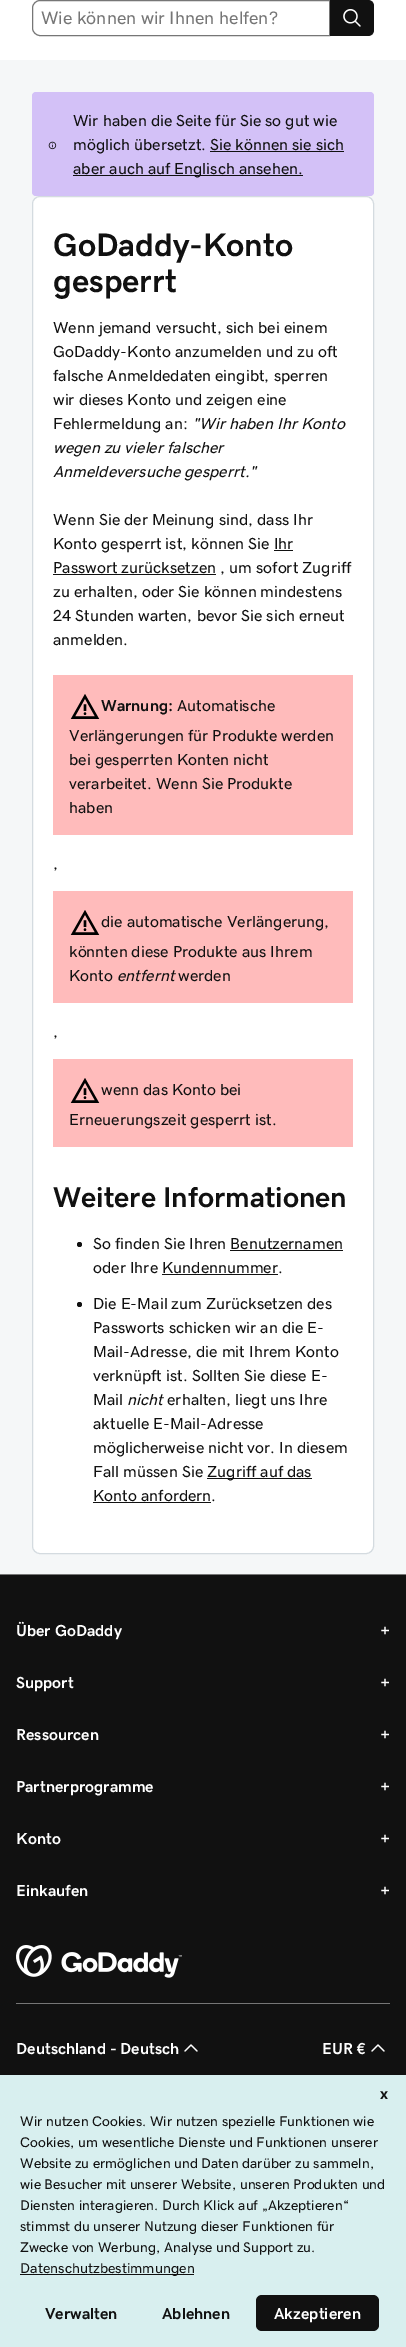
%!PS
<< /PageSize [406 2347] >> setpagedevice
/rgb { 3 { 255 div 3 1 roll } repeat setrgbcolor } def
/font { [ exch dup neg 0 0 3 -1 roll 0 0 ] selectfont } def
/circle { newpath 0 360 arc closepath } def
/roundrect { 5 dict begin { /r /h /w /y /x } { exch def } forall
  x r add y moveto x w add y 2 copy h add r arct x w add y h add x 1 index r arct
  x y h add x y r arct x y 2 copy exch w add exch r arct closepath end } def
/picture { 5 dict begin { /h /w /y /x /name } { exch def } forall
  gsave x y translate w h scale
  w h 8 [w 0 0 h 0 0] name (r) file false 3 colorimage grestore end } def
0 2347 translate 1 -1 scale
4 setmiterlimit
255 255 255 rgb
0 0 406 2347 rectfill
118 118 118 rgb
40 0.5 moveto 329.5 0.5 lineto 329.5 35.5 lineto 40 35.5 lineto 36 35.5 32.5 32 32.5 28 curveto 32.5 8 lineto 32.5 4 36 0.5 40 0.5 curveto closepath stroke
17 17 17 rgb
330 0 moveto 368 0 lineto 371.5 0 374 2.5 374 6 curveto 374 30 lineto 374 33.5 371.5 36 368 36 curveto 330 36 lineto closepath fill
(img/1.rgb) 343 9 18 18 picture
245 247 248 rgb
0 60 406 1514 rectfill
211 193 247 rgb
32 92 342 104 4 roundrect fill
(img/2.rgb) 48 141 9 9 picture
17 17 17 rgb
210 151 134 1 rectfill
73 175 230 1 rectfill
255 255 255 rgb
32.5 196.5 341 1357 7.5 roundrect gsave fill grestore
212 219 224 rgb
stroke
[
  [274 550 19 1 17 17 17]
  [53 574 163 1 17 17 17]
  [53 675 300 160 255 187 187]
] { aload pop rgb rectfill } forall
(img/3.rgb) 70 694 30 25 picture
53 891 300 112 rectfill
(img/3.rgb) 70 910 30 25 picture
53 1059 300 88 rectfill
(img/3.rgb) 70 1078 30 25 picture
17 17 17 rgb
79.5 1244.5 2.5 circle fill
230 1250 113 1 rectfill
162 1274 116 1 rectfill
79.5 1304.5 2.5 circle fill
[
  [207 1478 105 1 17 17 17]
  [93 1502 118 1 17 17 17]
  [0 1575 406 500 17 17 17]
  [0 1574 406 1 118 118 118]
] { aload pop rgb rectfill } forall
(img/4.rgb) 16 1945 166 33 picture
16 2003 374 1 rectfill
(img/5.rgb) 184 2044 14 8 picture
(img/5.rgb) 371 2044 14 8 picture
216 239 239 rgb
0 2075 406 272 rectfill
17 17 17 rgb
20 2274 174 1 rectfill
256 2295 123 36 6 roundrect fill
/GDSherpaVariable-Regular 18 font
118 118 118 rgb
41 24 moveto (Wie können wir Ihnen helfen?) show
/GDSherpaVariable-Regular 16 font
17 17 17 rgb
[
  [(Wir haben die Seite für Sie so gut wie) 73 126]
  [(möglich übersetzt. Sie können sie sich) 73 150]
  [(aber auch auf Englisch ansehen.) 73 174]
] { aload pop moveto show } forall
/GDSherpaVariable-ExtraBold 32.5 font
53 256 moveto (GoDaddy-Konto) show
53 292 moveto (gesperrt) show
/GDSherpaVariable-Regular 16 font
[
  [(Wenn jemand versucht, sich bei einem) 53 333]
  [(GoDaddy-Konto anzumelden und zu oft) 53 357]
  [(falsche Anmeldedaten eingibt, sperren) 53 381]
  [(wir dieses Konto und zeigen eine) 53 405]
  [(Fehlermeldung an:) 53 429]
] { aload pop moveto show } forall
/GDSherpaVariable-Italic 16 font
[
  [("Wir haben Ihr Konto) 192 429]
  [(wegen zu vieler falscher) 53 453]
  [(Anmeldeversuche gesperrt.") 53 477]
] { aload pop moveto show } forall
/GDSherpaVariable-Regular 16 font
[
  [(Wenn Sie der Meinung sind, dass Ihr) 53 525]
  [(Konto gesperrt ist, können Sie Ihr) 53 549]
  [(Passwort zurücksetzen , um sofort Zugriff) 53 573]
  [(zu erhalten, oder Sie können mindestens) 53 597]
  [(24 Stunden warten, bevor Sie sich erneut) 53 621]
  [(anmelden.) 53 645]
] { aload pop moveto show } forall
/GDSherpaVariable-Bold 16 font
101 711 moveto (Warnung:) show
/GDSherpaVariable-Regular 16 font
[
  [(Automatische) 177 711]
  [(Verlängerungen für Produkte werden) 69 741]
  [(bei gesperrten Konten nicht) 69 765]
  [(verarbeitet. Wenn Sie Produkte) 69 789]
  [(haben) 69 813]
  [(,) 53 869]
  [(die automatische Verlängerung,) 101 927]
  [(könnten diese Produkte aus Ihrem) 69 957]
  [(Konto) 69 981]
] { aload pop moveto show } forall
/GDSherpaVariable-Italic 16 font
117 981 moveto (entfernt) show
/GDSherpaVariable-Regular 16 font
[
  [(werden) 178 981]
  [(,) 53 1037]
  [(wenn das Konto bei) 101 1095]
  [(Erneuerungszeit gesperrt ist.) 69 1125]
] { aload pop moveto show } forall
/GDSherpaVariable-Bold 28.75 font
53 1207 moveto (Weitere Informationen) show
/GDSherpaVariable-Regular 16 font
[
  [(So finden Sie Ihren Benutzernamen) 93 1249]
  [(oder Ihre Kundennummer.) 93 1273]
  [(Die E-Mail zum Zurücksetzen des) 93 1309]
  [(Passworts schicken wir an die E-) 93 1333]
  [(Mail-Adresse, die mit Ihrem Konto) 93 1357]
  [(verknüpft ist. Sollten Sie diese E-) 93 1381]
  [(Mail) 93 1405]
] { aload pop moveto show } forall
/GDSherpaVariable-Italic 16 font
127 1405 moveto (nicht) show
/GDSherpaVariable-Regular 16 font
[
  [(erhalten, liegt uns Ihre) 167 1405]
  [(aktuelle E-Mail-Adresse) 93 1429]
  [(möglicherweise nicht vor. In diesem) 93 1453]
  [(Fall müssen Sie) 93 1477]
  [(Zugriff auf das) 207 1477]
  [(Konto anfordern.) 93 1501]
] { aload pop moveto show } forall
/GDSherpaVariable-ExtraBold 16 font
255 255 255 rgb
[
  [(Über GoDaddy) 16 1636]
  [(+) 380 1636]
  [(Support) 16 1688]
  [(+) 380 1688]
  [(Ressourcen) 16 1740]
  [(+) 380 1740]
  [(Partnerprogramme) 16 1792]
  [(+) 380 1792]
  [(Konto) 16 1844]
  [(+) 380 1844]
  [(Einkaufen) 16 1896]
  [(+) 380 1896]
] { aload pop moveto show } forall
/GDSherpaVariable-Bold 16 font
16 2054 moveto (Deutschland - Deutsch) show
322 2054 moveto (EUR €) show
/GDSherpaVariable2-Bold 16 font
17 17 17 rgb
380 2099 moveto (x) show
/GDSherpaVariable-Regular 14 font
[
  [(Wir nutzen Cookies. Wir nutzen spezielle Funktionen wie) 20 2126]
  [(Cookies, um wesentliche Dienste und Funktionen unserer) 20 2147]
  [(Website zu ermöglichen und Daten darüber zu sammeln,) 20 2168]
  [(wie Besucher mit unserer Website, unseren Produkten und) 20 2189]
  [(Diensten interagieren. Durch Klick auf „Akzeptieren“) 20 2210]
  [(stimmst du unserer Nutzung dieser Funktionen für) 20 2231]
  [(Zwecke von Werbung, Analyse und Support zu.) 20 2252]
] { aload pop moveto show } forall
/GDSherpaVariable-Regular 14.25 font
20 2273 moveto (Datenschutzbestimmungen) show
/GDSherpaVariable2-Bold 16 font
45 2319 moveto (Verwalten) show
162 2319 moveto (Ablehnen) show
255 255 255 rgb
274 2319 moveto (Akzeptieren) show
showpage
